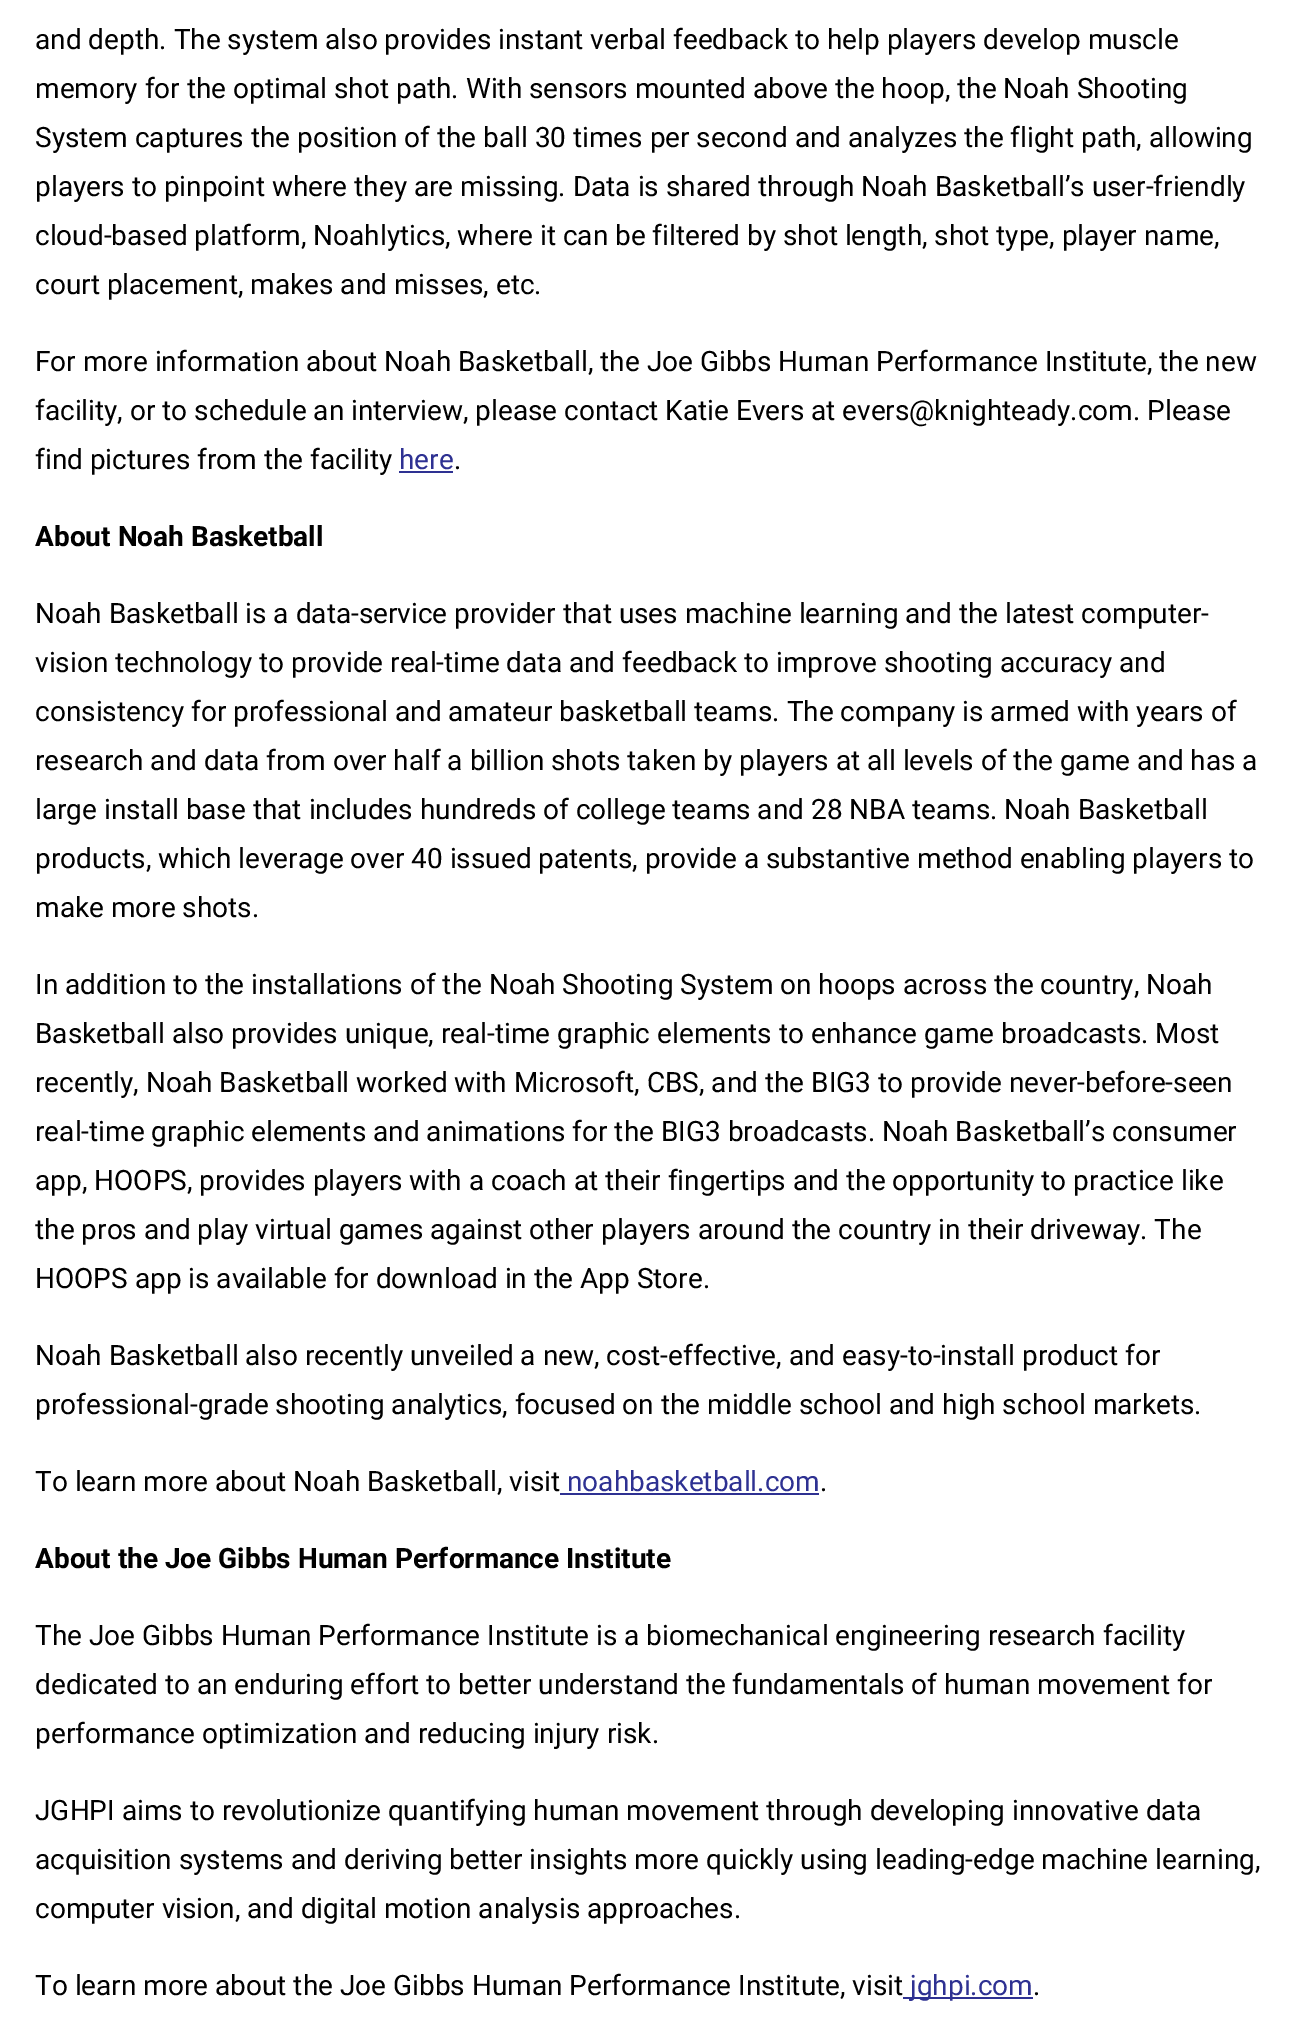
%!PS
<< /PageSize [1296 2029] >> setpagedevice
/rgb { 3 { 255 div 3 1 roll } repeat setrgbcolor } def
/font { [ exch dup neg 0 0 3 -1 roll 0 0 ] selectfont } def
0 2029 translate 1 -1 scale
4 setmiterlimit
255 255 255 rgb
0 0 1296 2029 rectfill
[
  [399 471 54 2 46 49 146]
  [560 1493 259 2 46 49 146]
  [903 1997 130 2 46 49 146]
] { aload pop rgb rectfill } forall
/Roboto-Regular 28 font
0 0 0 rgb
[
  [(and depth. The system also provides instant verbal feedback to help players develop muscle) 35 49]
  [(memory for the optimal shot path. With sensors mounted above the hoop, the Noah Shooting) 35 98]
  [(System captures the position of the ball 30 times per second and analyzes the flight path, allowing) 35 147]
  [(players to pinpoint where they are missing. Data is shared through Noah Basketball’s user-friendly) 35 196]
  [(cloud-based platform, Noahlytics, where it can be filtered by shot length, shot type, player name,) 35 245]
  [(court placement, makes and misses, etc.) 35 294]
  [(For more information about Noah Basketball, the Joe Gibbs Human Performance Institute, the new) 35 371]
  [(facility, or to schedule an interview, please contact Katie Evers at evers@knighteady.com. Please) 35 420]
  [(find pictures from the facility) 35 469]
] { aload pop moveto show } forall
46 49 146 rgb
399 469 moveto (here) show
0 0 0 rgb
454 469 moveto (.) show
/Roboto-Bold 28 font
35 546 moveto (About Noah Basketball) show
/Roboto-Regular 28 font
[
  [(Noah Basketball is a data-service provider that uses machine learning and the latest computer-) 35 623]
  [(vision technology to provide real-time data and feedback to improve shooting accuracy and) 35 672]
  [(consistency for professional and amateur basketball teams. The company is armed with years of) 35 721]
  [(research and data from over half a billion shots taken by players at all levels of the game and has a) 35 770]
  [(large install base that includes hundreds of college teams and 28 NBA teams. Noah Basketball) 35 819]
  [(products, which leverage over 40 issued patents, provide a substantive method enabling players to) 35 868]
  [(make more shots.) 35 917]
  [(In addition to the installations of the Noah Shooting System on hoops across the country, Noah) 35 994]
  [(Basketball also provides unique, real-time graphic elements to enhance game broadcasts. Most) 35 1043]
  [(recently, Noah Basketball worked with Microsoft, CBS, and the BIG3 to provide never-before-seen) 35 1092]
  [(real-time graphic elements and animations for the BIG3 broadcasts. Noah Basketball’s consumer) 35 1141]
  [(app, HOOPS, provides players with a coach at their fingertips and the opportunity to practice like) 35 1190]
  [(the pros and play virtual games against other players around the country in their driveway. The) 35 1239]
  [(HOOPS app is available for download in the App Store.) 35 1288]
  [(Noah Basketball also recently unveiled a new, cost-effective, and easy-to-install product for) 35 1365]
  [(professional-grade shooting analytics, focused on the middle school and high school markets.) 35 1414]
  [(To learn more about Noah Basketball, visit) 35 1491]
] { aload pop moveto show } forall
46 49 146 rgb
567 1491 moveto (noahbasketball.com) show
0 0 0 rgb
820 1491 moveto (.) show
/Roboto-Bold 28 font
35 1568 moveto (About the Joe Gibbs Human Performance Institute) show
/Roboto-Regular 28 font
[
  [(The Joe Gibbs Human Performance Institute is a biomechanical engineering research facility) 35 1645]
  [(dedicated to an enduring effort to better understand the fundamentals of human movement for) 35 1694]
  [(performance optimization and reducing injury risk.) 35 1743]
  [(JGHPI aims to revolutionize quantifying human movement through developing innovative data) 35 1820]
  [(acquisition systems and deriving better insights more quickly using leading-edge machine learning,) 35 1869]
  [(computer vision, and digital motion analysis approaches.) 35 1918]
  [(To learn more about the Joe Gibbs Human Performance Institute, visit) 35 1995]
] { aload pop moveto show } forall
46 49 146 rgb
910 1995 moveto (jghpi.com) show
0 0 0 rgb
1033 1995 moveto (.) show
showpage
